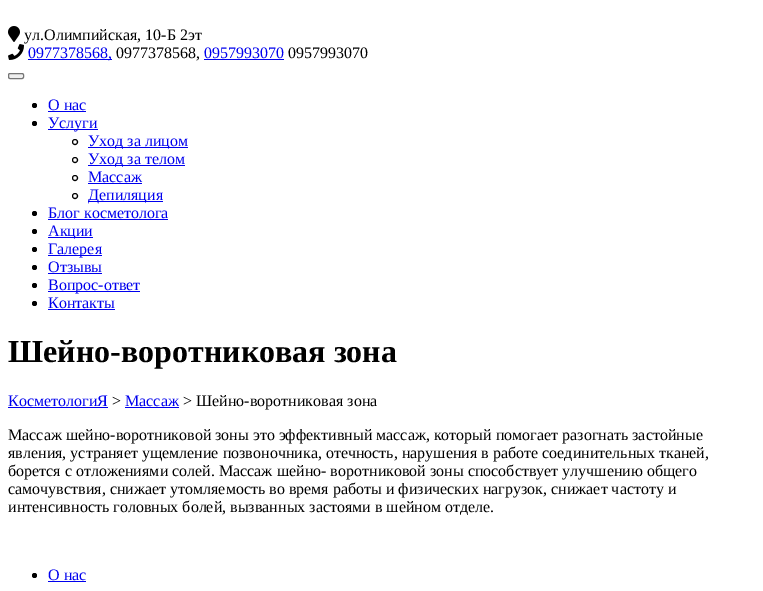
%!PS
<< /PageSize [763 591] >> setpagedevice
/rgb { 3 { 255 div 3 1 roll } repeat setrgbcolor } def
/font { [ exch dup neg 0 0 3 -1 roll 0 0 ] selectfont } def
/circle { newpath 0 360 arc closepath } def
/roundrect { 5 dict begin { /r /h /w /y /x } { exch def } forall
  x r add y moveto x w add y 2 copy h add r arct x w add y h add x 1 index r arct
  x y h add x y r arct x y 2 copy exch w add exch r arct closepath end } def
/picture { 5 dict begin { /h /w /y /x /name } { exch def } forall
  gsave x y translate w h scale
  w h 8 [w 0 0 h 0 0] name (r) file false 3 colorimage grestore end } def
0 591 translate 1 -1 scale
4 setmiterlimit
255 255 255 rgb
0 0 763 591 rectfill
(img/1.rgb) 8 26 12 16 picture
(img/2.rgb) 8 44 16 16 picture
0 0 238 rgb
28 59 84 1 rectfill
204 59 80 1 rectfill
239 239 239 rgb
8.5 73.5 15 5 1.5 roundrect gsave fill grestore
118 118 118 rgb
stroke
0 0 0 rgb
34.5 105.5 2.5 circle fill
0 0 238 rgb
48 111 38 1 rectfill
0 0 0 rgb
34.5 123.5 2.5 circle fill
0 0 238 rgb
48 129 50 1 rectfill
0 0 0 rgb
75 142 2.5 circle stroke
0 0 238 rgb
88 147 100 1 rectfill
0 0 0 rgb
75 160 2.5 circle stroke
0 0 238 rgb
88 165 97 1 rectfill
0 0 0 rgb
75 178 2.5 circle stroke
0 0 238 rgb
88 183 54 1 rectfill
0 0 0 rgb
75 196 2.5 circle stroke
0 0 238 rgb
88 201 75 1 rectfill
0 0 0 rgb
34.5 213.5 2.5 circle fill
0 0 238 rgb
48 219 120 1 rectfill
0 0 0 rgb
34.5 231.5 2.5 circle fill
0 0 238 rgb
48 237 45 1 rectfill
0 0 0 rgb
34.5 249.5 2.5 circle fill
0 0 238 rgb
48 255 54 1 rectfill
0 0 0 rgb
34.5 267.5 2.5 circle fill
0 0 238 rgb
48 273 54 1 rectfill
0 0 0 rgb
34.5 285.5 2.5 circle fill
0 0 238 rgb
48 291 92 1 rectfill
0 0 0 rgb
34.5 303.5 2.5 circle fill
[
  [48 309 67 1 0 0 238]
  [8 407 100 1 0 0 238]
  [125 407 54 1 0 0 238]
] { aload pop rgb rectfill } forall
0 0 0 rgb
34.5 575.5 2.5 circle fill
0 0 238 rgb
48 581 38 1 rectfill
/LiberationSerif-Regular 16 font
0 0 0 rgb
24 40 moveto (ул.Олимпийская, 10-Б 2эт) show
0 0 238 rgb
28 58 moveto (0977378568,) show
0 0 0 rgb
116 58 moveto (0977378568,) show
0 0 238 rgb
204 58 moveto (0957993070) show
0 0 0 rgb
288 58 moveto (0957993070) show
0 0 238 rgb
[
  [(О нас) 48 110]
  [(Услуги) 48 128]
  [(Уход за лицом) 88 146]
  [(Уход за телом) 88 164]
  [(Массаж) 88 182]
  [(Депиляция) 88 200]
  [(Блог косметолога) 48 218]
  [(Акции) 48 236]
  [(Галерея) 48 254]
  [(Отзывы) 48 272]
  [(Вопрос-ответ) 48 290]
  [(Контакты) 48 308]
] { aload pop moveto show } forall
/LiberationSerif-Bold 32 font
0 0 0 rgb
8 362 moveto (Шейно-воротниковая зона) show
/LiberationSerif-Regular 16 font
0 0 238 rgb
8 406 moveto (КосметологиЯ) show
0 0 0 rgb
112 406 moveto (>) show
0 0 238 rgb
125 406 moveto (Массаж) show
0 0 0 rgb
[
  [(> Шейно-воротниковая зона) 183 406]
  [(Массаж шейно-воротниковой зоны это эффективный массаж, который помогает разогнать застойные) 8 440]
  [(явления, устраняет ущемление позвоночника, отечность, нарушения в работе соединительных тканей,) 8 458]
  [(борется с отложениями солей. Массаж шейно- воротниковой зоны способствует улучшению общего) 8 476]
  [(самочувствия, снижает утомляемость во время работы и физических нагрузок, снижает частоту и) 8 494]
  [(интенсивность головных болей, вызванных застоями в шейном отделе.) 8 512]
] { aload pop moveto show } forall
0 0 238 rgb
48 580 moveto (О нас) show
showpage
